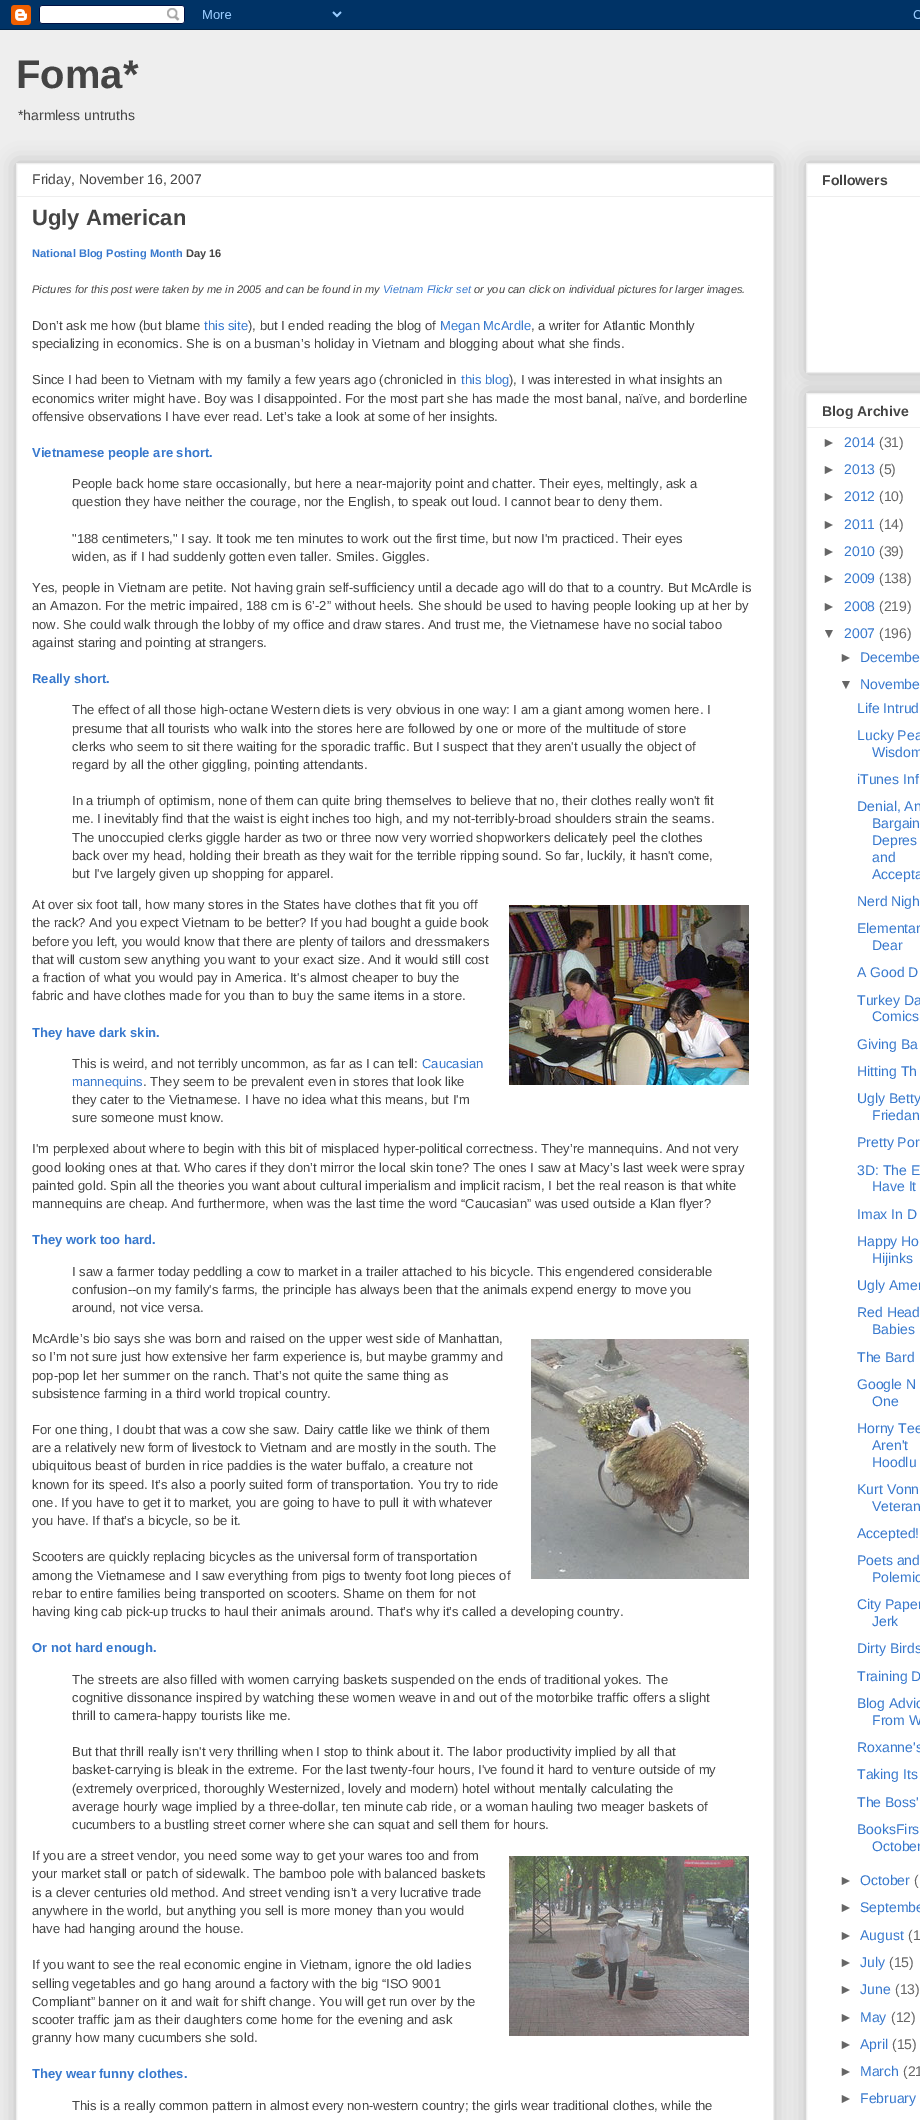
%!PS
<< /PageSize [920 2120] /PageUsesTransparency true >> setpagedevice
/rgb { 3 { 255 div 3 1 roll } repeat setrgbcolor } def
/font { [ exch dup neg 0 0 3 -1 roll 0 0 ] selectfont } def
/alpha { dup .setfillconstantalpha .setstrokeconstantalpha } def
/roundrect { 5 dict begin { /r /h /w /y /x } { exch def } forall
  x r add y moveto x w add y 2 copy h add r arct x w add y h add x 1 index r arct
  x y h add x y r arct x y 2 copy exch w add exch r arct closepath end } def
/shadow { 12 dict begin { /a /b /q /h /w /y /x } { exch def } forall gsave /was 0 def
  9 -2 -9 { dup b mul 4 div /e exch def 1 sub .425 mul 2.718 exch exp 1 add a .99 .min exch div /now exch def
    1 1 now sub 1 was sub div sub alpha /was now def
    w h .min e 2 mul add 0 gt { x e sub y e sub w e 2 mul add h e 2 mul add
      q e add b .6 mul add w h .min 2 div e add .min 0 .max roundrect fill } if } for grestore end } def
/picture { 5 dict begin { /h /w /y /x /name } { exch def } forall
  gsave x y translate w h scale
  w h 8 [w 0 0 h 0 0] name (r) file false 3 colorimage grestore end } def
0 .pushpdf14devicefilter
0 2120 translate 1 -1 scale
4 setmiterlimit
238 238 238 rgb
0 0 920 2120 rectfill
(img/1.rgb) 0 0 920 30 picture
0 0 0 rgb
16 163 758 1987 0 10 0.2 shadow
255 255 255 rgb
16.5 163.5 moveto 773.5 163.5 lineto 773.5 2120.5 lineto 16.5 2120.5 lineto closepath gsave fill grestore
238 238 238 rgb
stroke
17 196 756 1 rectfill
(img/2.rgb) 509 905 240 180 picture
(img/3.rgb) 531 1339 218 240 picture
(img/4.rgb) 509 1856 240 180 picture
0 0 0 rgb
806 163 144 210 0 10 0.2 shadow
255 255 255 rgb
806.5 163.5 moveto 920.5 163.5 lineto 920.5 372.5 lineto 806.5 372.5 lineto closepath gsave fill grestore
238 238 238 rgb
stroke
807 196 113 1 rectfill
0 0 0 rgb
806 393 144 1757 0 10 0.2 shadow
255 255 255 rgb
806.5 393.5 moveto 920.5 393.5 lineto 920.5 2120.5 lineto 806.5 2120.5 lineto closepath gsave fill grestore
238 238 238 rgb
stroke
807 427 113 1 rectfill
/LiberationSans-Bold 40 font
68 68 68 rgb
16 88 moveto (Foma*) show
/LiberationSans-Regular 14 font
18 120 moveto (*harmless untruths) show
32 184 moveto (Friday, November 16, 2007) show
/LiberationSans-Bold 22 font
32 225 moveto (Ugly American) show
/LiberationSans-Bold 11.05 font
55 120 205 rgb
32 257 moveto (National Blog Posting Month) show
68 68 68 rgb
186 257 moveto (Day 16) show
/LiberationSans-Italic 11.05 font
32 293 moveto (Pictures for this post were taken by me in 2005 and can be found in my) show
55 120 205 rgb
383 293 moveto (Vietnam Flickr set) show
68 68 68 rgb
474 293 moveto (or you can click on individual pictures for larger images.) show
/LiberationSans-Regular 13 font
32 330 moveto (Don’t ask me how \(but blame) show
55 120 205 rgb
204 330 moveto (this site) show
68 68 68 rgb
248 330 moveto (\), but I ended reading the blog of) show
55 120 205 rgb
440 330 moveto (Megan McArdle) show
68 68 68 rgb
[
  [(, a writer for Atlantic Monthly) 531 330]
  [(specializing in economics. She is on a busman’s holiday in Vietnam and blogging about what she finds.) 32 348]
  [(Since I had been to Vietnam with my family a few years ago \(chronicled in) 32 384]
] { aload pop moveto show } forall
55 120 205 rgb
461 384 moveto (this blog) show
68 68 68 rgb
[
  [(\), I was interested in what insights an) 509 384]
  [(economics writer might have. Boy was I disappointed. For the most part she has made the most banal, naïve, and borderline) 32 403]
  [(offensive observations I have ever read. Let’s take a look at some of her insights.) 32 421]
] { aload pop moveto show } forall
/LiberationSans-Bold 13 font
55 120 205 rgb
32 457 moveto (Vietnamese people are short.) show
/LiberationSans-Regular 13 font
68 68 68 rgb
[
  [(People back home stare occasionally, but here a near-majority point and chatter. Their eyes, meltingly, ask a) 72 488]
  [(question they have neither the courage, nor the English, to speak out loud. I cannot bear to deny them.) 72 506]
  [("188 centimeters," I say. It took me ten minutes to work out the first time, but now I'm practiced. Their eyes) 72 543]
  [(widen, as if I had suddenly gotten even taller. Smiles. Giggles.) 72 561]
  [(Yes, people in Vietnam are petite. Not having grain self-sufficiency until a decade ago will do that to a country. But McArdle is) 32 592]
  [(an Amazon. For the metric impaired, 188 cm is 6’-2” without heels. She should be used to having people looking up at her by) 32 610]
  [(now. She could walk through the lobby of my office and draw stares. And trust me, the Vietnamese have no social taboo) 32 629]
  [(against staring and pointing at strangers.) 32 647]
] { aload pop moveto show } forall
/LiberationSans-Bold 13 font
55 120 205 rgb
32 683 moveto (Really short.) show
/LiberationSans-Regular 13 font
68 68 68 rgb
[
  [(The effect of all those high-octane Western diets is very obvious in one way: I am a giant among women here. I) 72 714]
  [(presume that all tourists who walk into the stores here are followed by one or more of the multitude of store) 72 733]
  [(clerks who seem to sit there waiting for the sporadic traffic. But I suspect that they aren't usually the object of) 72 751]
  [(regard by all the other giggling, pointing attendants.) 72 769]
  [(In a triumph of optimism, none of them can quite bring themselves to believe that no, their clothes really won't fit) 72 805]
  [(me. I inevitably find that the waist is eight inches too high, and my not-terribly-broad shoulders strain the seams.) 72 823]
  [(The unoccupied clerks giggle harder as two or three now very worried shopworkers delicately peel the clothes) 72 842]
  [(back over my head, holding their breath as they wait for the terrible ripping sound. So far, luckily, it hasn't come,) 72 860]
  [(but I've largely given up shopping for apparel.) 72 878]
  [(At over six foot tall, how many stores in the States have clothes that fit you off) 32 909]
  [(the rack? And you expect Vietnam to be better? If you had bought a guide book) 32 927]
  [(before you left, you would know that there are plenty of tailors and dressmakers) 32 946]
  [(that will custom sew anything you want to your exact size. And it would still cost) 32 964]
  [(a fraction of what you would pay in America. It's almost cheaper to buy the) 32 982]
  [(fabric and have clothes made for you than to buy the same items in a store.) 32 1000]
] { aload pop moveto show } forall
/LiberationSans-Bold 13 font
55 120 205 rgb
32 1037 moveto (They have dark skin.) show
/LiberationSans-Regular 13 font
68 68 68 rgb
72 1068 moveto (This is weird, and not terribly uncommon, as far as I can tell:) show
55 120 205 rgb
422 1068 moveto (Caucasian) show
72 1086 moveto (mannequins) show
68 68 68 rgb
[
  [(. They seem to be prevalent even in stores that look like) 143 1086]
  [(they cater to the Vietnamese. I have no idea what this means, but I'm) 72 1104]
  [(sure someone must know.) 72 1122]
  [(I'm perplexed about where to begin with this bit of misplaced hyper-political correctness. They’re mannequins. And not very) 32 1153]
  [(good looking ones at that. Who cares if they don’t mirror the local skin tone? The ones I saw at Macy’s last week were spray) 32 1172]
  [(painted gold. Spin all the theories you want about cultural imperialism and implicit racism, I bet the real reason is that white) 32 1190]
  [(mannequins are cheap. And furthermore, when was the last time the word “Caucasian” was used outside a Klan flyer?) 32 1208]
] { aload pop moveto show } forall
/LiberationSans-Bold 13 font
55 120 205 rgb
32 1244 moveto (They work too hard.) show
/LiberationSans-Regular 13 font
68 68 68 rgb
[
  [(I saw a farmer today peddling a cow to market in a trailer attached to his bicycle. This engendered considerable) 72 1276]
  [(confusion--on my family's farms, the principle has always been that the animals expend energy to move you) 72 1294]
  [(around, not vice versa.) 72 1312]
  [(McArdle’s bio says she was born and raised on the upper west side of Manhattan,) 32 1343]
  [(so I’m not sure just how extensive her farm experience is, but maybe grammy and) 32 1361]
  [(pop-pop let her summer on the ranch. That’s not quite the same thing as) 32 1380]
  [(subsistence farming in a third world tropical country.) 32 1398]
  [(For one thing, I doubt that was a cow she saw. Dairy cattle like we think of them) 32 1434]
  [(are a relatively new form of livestock to Vietnam and are mostly in the south. The) 32 1452]
  [(ubiquitous beast of burden in rice paddies is the water buffalo, a creature not) 32 1470]
  [(known for its speed. It’s also a poorly suited form of transportation. You try to ride) 32 1489]
  [(one. If you have to get it to market, you are going to have to pull it with whatever) 32 1507]
  [(you have. If that’s a bicycle, so be it.) 32 1525]
  [(Scooters are quickly replacing bicycles as the universal form of transportation) 32 1561]
  [(among the Vietnamese and I saw everything from pigs to twenty foot long pieces of) 32 1580]
  [(rebar to entire families being transported on scooters. Shame on them for not) 32 1598]
  [(having king cab pick-up trucks to haul their animals around. That’s why it’s called a developing country.) 32 1616]
] { aload pop moveto show } forall
/LiberationSans-Bold 13 font
55 120 205 rgb
32 1652 moveto (Or not hard enough.) show
/LiberationSans-Regular 13 font
68 68 68 rgb
[
  [(The streets are also filled with women carrying baskets suspended on the ends of traditional yokes. The) 72 1684]
  [(cognitive dissonance inspired by watching these women weave in and out of the motorbike traffic offers a slight) 72 1702]
  [(thrill to camera-happy tourists like me.) 72 1720]
  [(But that thrill really isn't very thrilling when I stop to think about it. The labor productivity implied by all that) 72 1756]
  [(basket-carrying is bleak in the extreme. For the last twenty-four hours, I've found it hard to venture outside of my) 72 1774]
  [(\(extremely overpriced, thoroughly Westernized, lovely and modern\) hotel without mentally calculating the) 72 1793]
  [(average hourly wage implied by a three-dollar, ten minute cab ride, or a woman hauling two meager baskets of) 72 1811]
  [(cucumbers to a bustling street corner where she can squat and sell them for hours.) 72 1829]
  [(If you are a street vendor, you need some way to get your wares too and from) 32 1860]
  [(your market stall or patch of sidewalk. The bamboo pole with balanced baskets) 32 1878]
  [(is a clever centuries old method. And street vending isn’t a very lucrative trade) 32 1897]
  [(anywhere in the world, but anything you sell is more money than you would) 32 1915]
  [(have had hanging around the house.) 32 1933]
  [(If you want to see the real economic engine in Vietnam, ignore the old ladies) 32 1969]
  [(selling vegetables and go hang around a factory with the big “ISO 9001) 32 1988]
  [(Compliant” banner on it and wait for shift change. You will get run over by the) 32 2006]
  [(scooter traffic jam as their daughters come home for the evening and ask) 32 2024]
  [(granny how many cucumbers she sold.) 32 2042]
] { aload pop moveto show } forall
/LiberationSans-Bold 13 font
55 120 205 rgb
32 2078 moveto (They wear funny clothes.) show
/LiberationSans-Regular 13 font
68 68 68 rgb
72 2110 moveto (This is a really common pattern in almost every non-western country; the girls wear traditional clothes, while the) show
/LiberationSans-Bold 14 font
822 185 moveto (Followers) show
822 416 moveto (Blog Archive) show
/LiberationSans-Regular 14 font
102 102 102 rgb
822 447 moveto (►) show
55 120 205 rgb
844 447 moveto (2014) show
102 102 102 rgb
879 447 moveto (\(31\)) show
822 474 moveto (►) show
55 120 205 rgb
844 474 moveto (2013) show
102 102 102 rgb
879 474 moveto (\(5\)) show
822 501 moveto (►) show
55 120 205 rgb
844 501 moveto (2012) show
102 102 102 rgb
879 501 moveto (\(10\)) show
822 529 moveto (►) show
55 120 205 rgb
844 529 moveto (2011) show
102 102 102 rgb
879 529 moveto (\(14\)) show
822 556 moveto (►) show
55 120 205 rgb
844 556 moveto (2010) show
102 102 102 rgb
879 556 moveto (\(39\)) show
822 583 moveto (►) show
55 120 205 rgb
844 583 moveto (2009) show
102 102 102 rgb
879 583 moveto (\(138\)) show
822 611 moveto (►) show
55 120 205 rgb
844 611 moveto (2008) show
102 102 102 rgb
879 611 moveto (\(219\)) show
822 638 moveto (▼) show
55 120 205 rgb
844 638 moveto (2007) show
102 102 102 rgb
879 638 moveto (\(196\)) show
839 662 moveto (►) show
55 120 205 rgb
860 662 moveto (Decembe) show
102 102 102 rgb
839 689 moveto (▼) show
55 120 205 rgb
[
  [(Novembe) 860 689]
  [(Life Intrud) 857 713]
  [(Lucky Pea) 857 740]
  [(Wisdom) 872 757]
  [(iTunes Inf) 857 784]
  [(Denial, An) 857 811]
  [(Bargain) 872 828]
  [(Depres) 872 845]
  [(and) 872 862]
  [(Accepta) 872 879]
  [(Nerd Nigh) 857 906]
  [(Elementar) 857 933]
  [(Dear) 872 950]
  [(A Good D) 857 977]
  [(Turkey Da) 857 1005]
  [(Comics) 872 1021]
  [(Giving Ba) 857 1049]
  [(Hitting Th) 857 1076]
  [(Ugly Betty) 857 1103]
  [(Friedan) 872 1120]
  [(Pretty Por) 857 1147]
  [(3D: The E) 857 1175]
  [(Have It) 872 1191]
  [(Imax In D) 857 1219]
  [(Happy Ho) 857 1246]
  [(Hijinks) 872 1263]
  [(Ugly Amer) 857 1290]
  [(Red Head) 857 1317]
  [(Babies) 872 1334]
  [(The Bard) 857 1362]
  [(Google N) 857 1389]
  [(One) 872 1406]
  [(Horny Tee) 857 1433]
  [(Aren't) 872 1450]
  [(Hoodlu) 872 1467]
  [(Kurt Vonn) 857 1494]
  [(Veteran) 872 1511]
  [(Accepted!) 857 1538]
  [(Poets and) 857 1565]
  [(Polemic) 872 1582]
  [(City Paper) 857 1609]
  [(Jerk) 872 1626]
  [(Dirty Birds) 857 1653]
  [(Training D) 857 1681]
  [(Blog Advic) 857 1708]
  [(From W) 872 1725]
  [(Roxanne's) 857 1752]
  [(Taking Its) 857 1779]
  [(The Boss') 857 1807]
  [(BooksFirs) 857 1834]
  [(October) 872 1851]
] { aload pop moveto show } forall
102 102 102 rgb
839 1885 moveto (►) show
55 120 205 rgb
860 1885 moveto (October) show
102 102 102 rgb
914 1885 moveto (\() show
839 1912 moveto (►) show
55 120 205 rgb
860 1912 moveto (Septembe) show
102 102 102 rgb
839 1940 moveto (►) show
55 120 205 rgb
860 1940 moveto (August) show
102 102 102 rgb
908 1940 moveto (\(1) show
839 1967 moveto (►) show
55 120 205 rgb
860 1967 moveto (July) show
102 102 102 rgb
889 1967 moveto (\(15\)) show
839 1994 moveto (►) show
55 120 205 rgb
860 1994 moveto (June) show
102 102 102 rgb
895 1994 moveto (\(13\)) show
839 2022 moveto (►) show
55 120 205 rgb
860 2022 moveto (May) show
102 102 102 rgb
891 2022 moveto (\(12\)) show
839 2049 moveto (►) show
55 120 205 rgb
860 2049 moveto (April) show
102 102 102 rgb
892 2049 moveto (\(15\)) show
839 2076 moveto (►) show
55 120 205 rgb
860 2076 moveto (March) show
102 102 102 rgb
903 2076 moveto (\(21) show
839 2103 moveto (►) show
55 120 205 rgb
860 2103 moveto (February) show
.poppdf14devicefilter showpage
